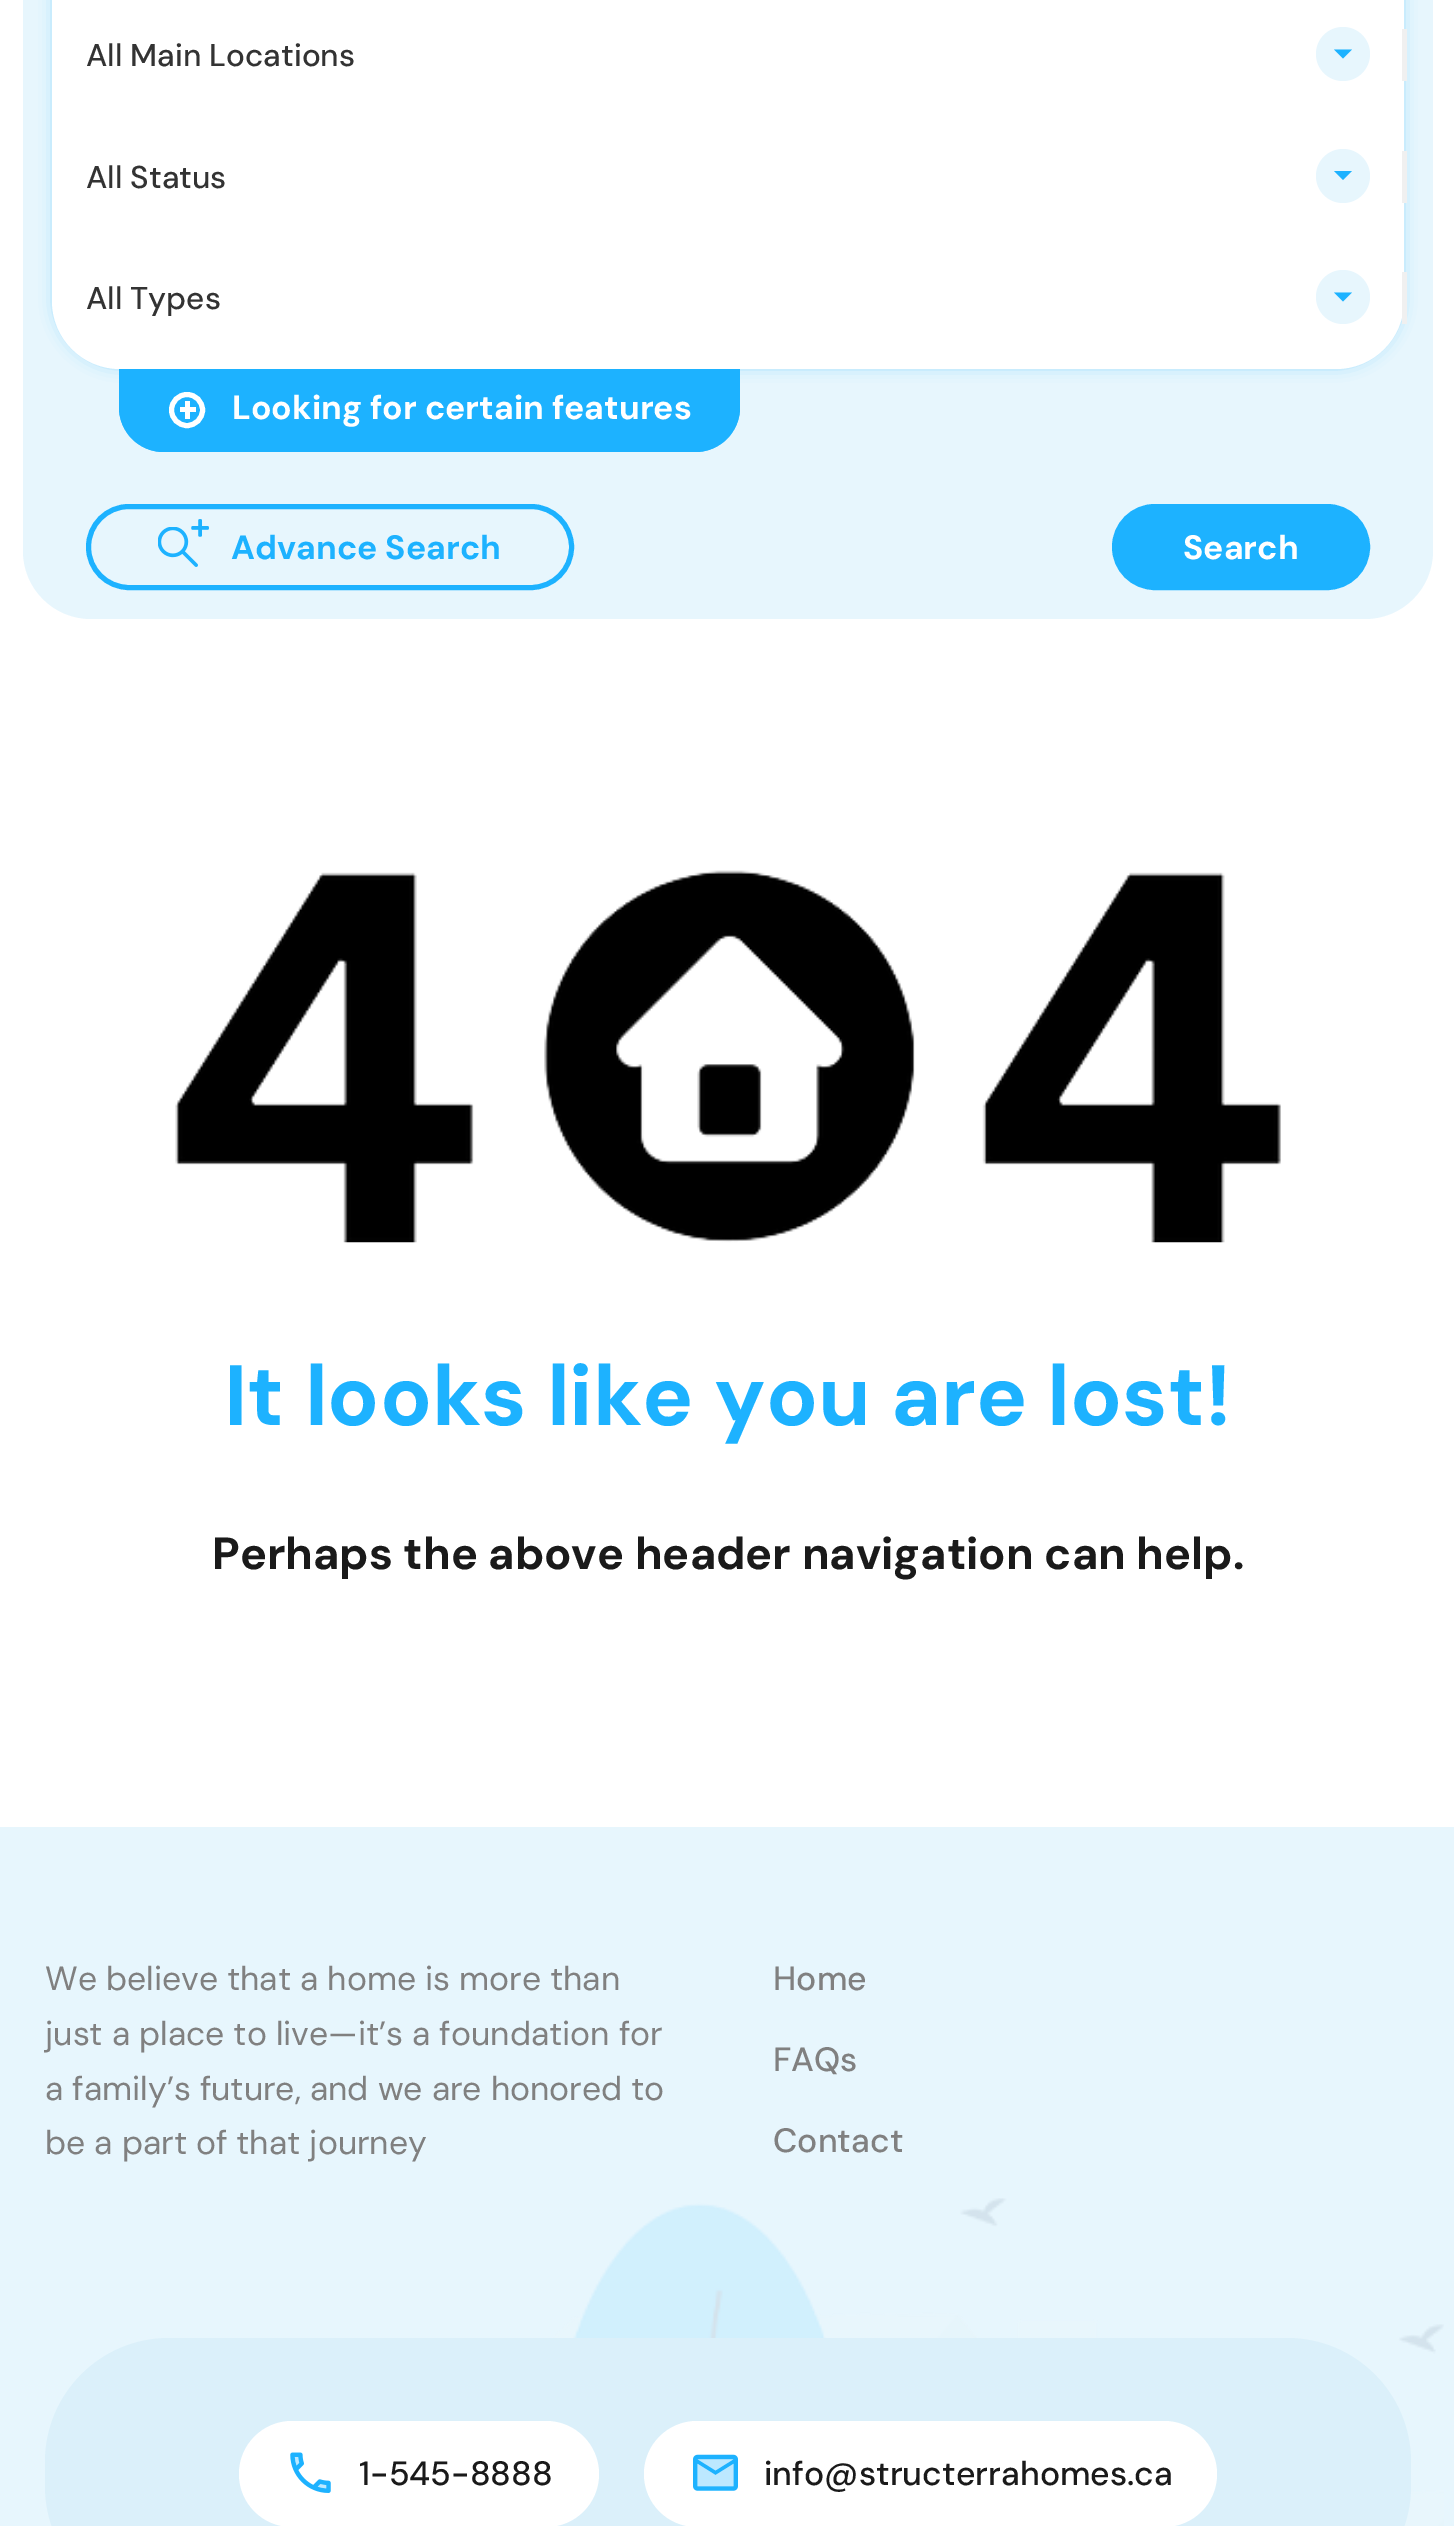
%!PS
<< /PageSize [1454 2526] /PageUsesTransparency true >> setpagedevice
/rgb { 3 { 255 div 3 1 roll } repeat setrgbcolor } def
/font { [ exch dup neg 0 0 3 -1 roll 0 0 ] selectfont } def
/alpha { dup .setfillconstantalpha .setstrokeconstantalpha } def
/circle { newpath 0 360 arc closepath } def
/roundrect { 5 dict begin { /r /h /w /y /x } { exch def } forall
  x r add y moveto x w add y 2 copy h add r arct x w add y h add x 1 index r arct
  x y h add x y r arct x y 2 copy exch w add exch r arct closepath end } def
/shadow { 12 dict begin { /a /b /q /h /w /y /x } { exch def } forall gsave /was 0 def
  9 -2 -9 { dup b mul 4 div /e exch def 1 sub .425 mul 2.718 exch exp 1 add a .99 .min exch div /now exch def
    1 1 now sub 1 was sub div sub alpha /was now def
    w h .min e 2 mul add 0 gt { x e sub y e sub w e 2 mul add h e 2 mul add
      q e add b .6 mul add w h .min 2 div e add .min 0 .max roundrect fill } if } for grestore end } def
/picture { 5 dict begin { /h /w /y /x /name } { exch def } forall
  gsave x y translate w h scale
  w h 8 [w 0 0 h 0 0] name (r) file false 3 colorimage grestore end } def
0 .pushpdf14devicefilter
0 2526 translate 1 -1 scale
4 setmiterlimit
255 255 255 rgb
0 0 1454 2526 rectfill
231 246 253 rgb
23 -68 1410 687 68 roundrect fill
29 178 255 rgb
56 -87 1344 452 63 8 0.5 shadow
255 255 255 rgb
52 -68 1352 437 68 roundrect fill
231 246 253 rgb
1343 54 27 circle fill
29 178 255 rgb
1334 49.5 moveto 1352 49.5 lineto 1343 58.5 lineto closepath fill
240 240 240 rgb
1402 29 5 52 rectfill
231 246 253 rgb
1343 176 27 circle fill
29 178 255 rgb
1334 171 moveto 1352 171 lineto 1343 180 lineto closepath fill
240 240 240 rgb
1402 151 5 52 rectfill
231 246 253 rgb
1343 297 27 circle fill
29 178 255 rgb
1334 292.5 moveto 1352 292.5 lineto 1343 301.5 lineto closepath fill
240 240 240 rgb
1402 272 5 52 rectfill
29 178 255 rgb
119 369 moveto 740 369 lineto 740 407 lineto 740 432 720 452 695 452 curveto 164 452 lineto 139 452 119 432 119 407 curveto closepath fill
119 369 moveto 740 369 lineto 740 407 lineto 740 432 720 452 695 452 curveto 164 452 lineto 139 452 119 432 119 407 curveto closepath 124 369 moveto 736 369 lineto 736 407 lineto 736 430 718 448 695 448 curveto 164 448 lineto 142 448 124 430 124 407 curveto closepath eofill
255 255 255 rgb
5 setlinewidth
187 410 15.5 circle stroke
180 407 16 5 rectfill
185 401 5 18 rectfill
29 178 255 rgb
88.5 506.5 483 81 40.5 roundrect stroke
(img/2.rgb) 191 519 18 18 picture
(img/1.rgb) 158 527 40 40 picture
1114.5 506.5 253 81 40.5 roundrect gsave fill grestore
stroke
(img/3.rgb) 175 870 1106 373 picture
231 246 253 rgb
0 1827 1454 699 rectfill
(img/6.rgb) 552 2198 892 328 picture
219 240 250 rgb
45 2338 1366 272 124 roundrect fill
255 255 255 rgb
239 2421 360 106 53 roundrect fill
(img/4.rgb) 290 2452 41 41 picture
644 2421 573 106 53 roundrect fill
(img/5.rgb) 693 2454 45 37 picture
/DMSans-Medium 31.5 font
51 51 51 rgb
[
  [(All Main Locations) 86 66]
  [(All Status) 86 188]
  [(All Types) 86 309]
] { aload pop moveto show } forall
/DMSans-Bold 33.75 font
255 255 255 rgb
232 419 moveto (Looking for certain features) show
29 178 255 rgb
231 559 moveto (Advance Search) show
255 255 255 rgb
1183 559 moveto (Search) show
/DMSans-Bold 85.5 font
29 178 255 rgb
224 1425 moveto (It looks like you are lost!) show
/DMSans-Bold 45 font
26 26 26 rgb
212 1569 moveto (Perhaps the above header navigation can help.) show
/DMSans-Regular 33.75 font
128 128 128 rgb
[
  [(We believe that a home is more than) 45 1990]
  [(just a place to live—it’s a foundation for) 45 2045]
  [(a family’s future, and we are honored to) 45 2100]
  [(be a part of that journey) 45 2154]
] { aload pop moveto show } forall
/DMSans-Medium 33.75 font
[
  [(Home) 773 1990]
  [(FAQs) 773 2071]
  [(Contact) 773 2152]
] { aload pop moveto show } forall
26 26 26 rgb
359 2485 moveto (1-545-8888) show
764 2485 moveto (info@structerrahomes.ca) show
.poppdf14devicefilter showpage
